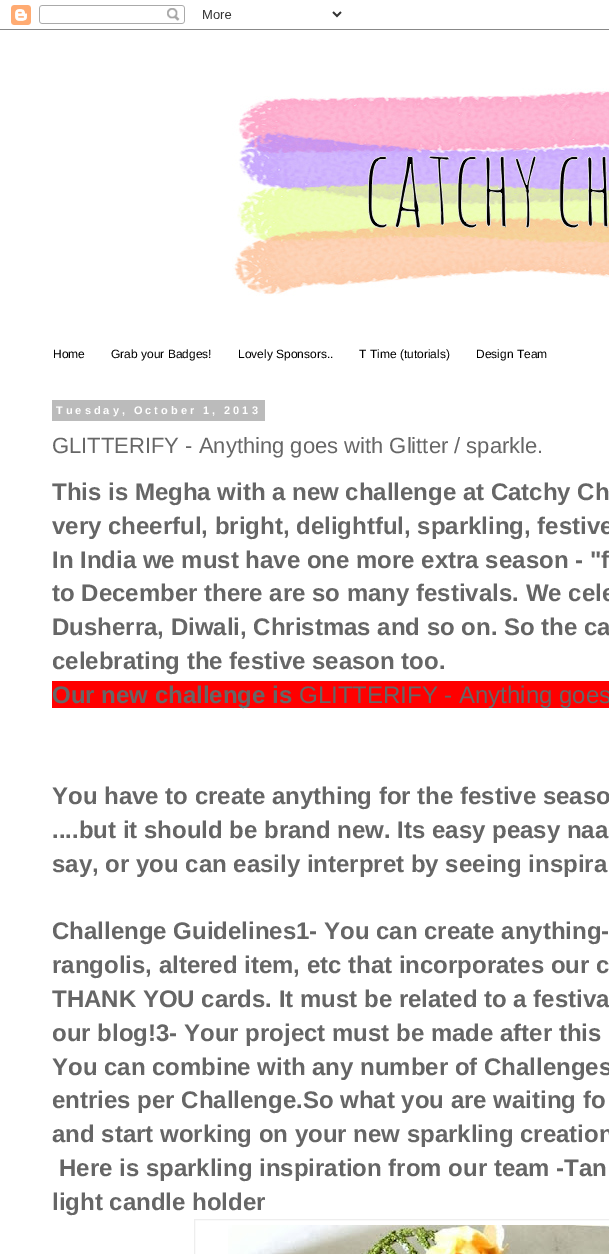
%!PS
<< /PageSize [609 1254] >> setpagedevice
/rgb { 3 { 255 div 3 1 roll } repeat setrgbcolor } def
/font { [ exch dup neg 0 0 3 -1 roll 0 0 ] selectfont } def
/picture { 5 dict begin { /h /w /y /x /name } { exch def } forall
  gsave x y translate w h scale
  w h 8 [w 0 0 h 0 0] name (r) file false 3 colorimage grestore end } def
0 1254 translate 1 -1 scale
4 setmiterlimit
255 255 255 rgb
0 0 609 1254 rectfill
(img/1.rgb) 0 5 609 25 picture
(img/2.rgb) 232 88 377 208 picture
187 187 187 rgb
52 400 213 21 rectfill
255 0 0 rgb
52 681 557 27 rectfill
238 238 238 rgb
194.5 1219.5 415 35 rectstroke
(img/3.rgb) 228 1225 381 29 picture
/LiberationSans-Regular 12 font
0 0 0 rgb
[
  [(Home) 53 358]
  [(Grab your Badges!) 111 358]
  [(Lovely Sponsors..) 238 358]
  [(T Time \(tutorials\)) 359 358]
  [(Design Team) 476 358]
] { aload pop moveto show } forall
/LiberationSans-Bold 11 font
255 255 255 rgb
56 414 moveto 3 0 (Tuesday, October 1, 2013) ashow
/LiberationSans-Regular 22 font
102 102 102 rgb
52 453 moveto (GLITTERIFY - Anything goes with Glitter / sparkle.) show
/LiberationSans-Bold 24 font
[
  [(This is Megha with a new challenge at Catchy Ch) 52 500]
  [(very cheerful, bright, delightful, sparkling, festive) 52 534]
  [(In India we must have one more extra season - "f) 52 568]
  [(to December there are so many festivals. We cele) 52 601]
  [(Dusherra, Diwali, Christmas and so on. So the ca) 52 635]
  [(celebrating the festive season too.) 52 669]
  [(Our new challenge is) 52 703]
] { aload pop moveto show } forall
/LiberationSans-Regular 24 font
299 703 moveto (GLITTERIFY - Anything goes) show
/LiberationSans-Bold 24 font
[
  [(You have to create anything for the festive seaso) 52 804]
  [(....but it should be brand new. Its easy peasy naa) 52 838]
  [(say, or you can easily interpret by seeing inspira) 52 872]
  [(Challenge Guidelines1- You can create anything-) 52 939]
  [(rangolis, altered item, etc that incorporates our c) 52 973]
  [(THANK YOU cards. It must be related to a festiva) 52 1007]
  [(our blog!3- Your project must be made after this) 52 1041]
  [(You can combine with any number of Challenges) 52 1075]
  [(entries per Challenge.So what you are waiting fo) 52 1108]
  [(and start working on your new sparkling creation) 52 1142]
  [(Here is sparkling inspiration from our team -Tan) 59 1176]
  [(light candle holder) 52 1210]
] { aload pop moveto show } forall
showpage
